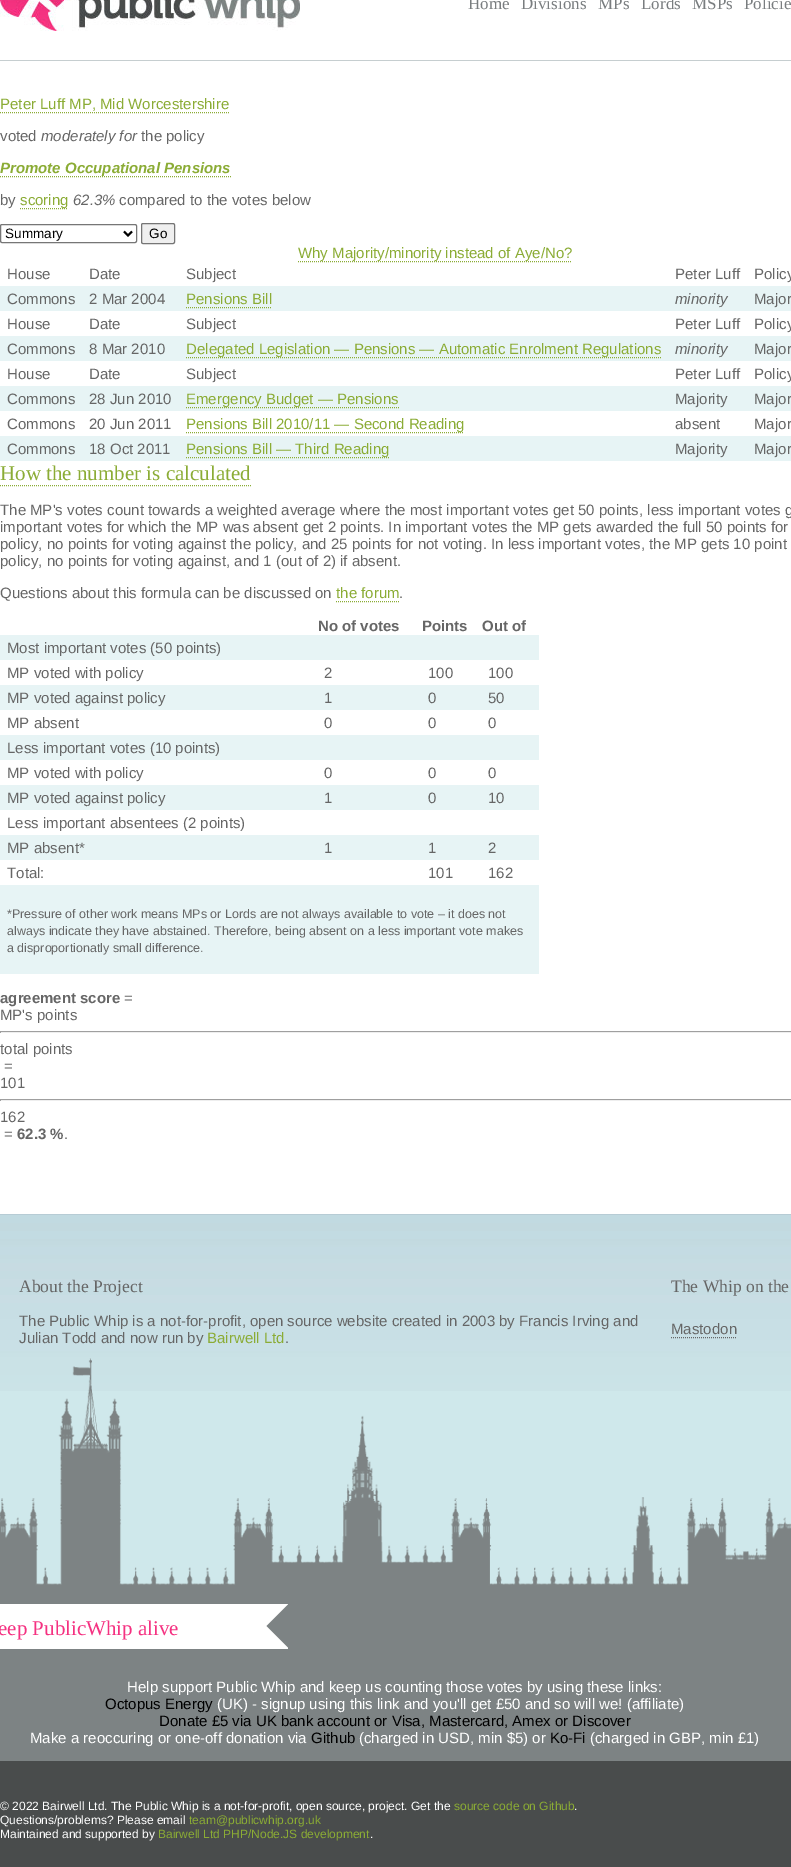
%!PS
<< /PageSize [791 1867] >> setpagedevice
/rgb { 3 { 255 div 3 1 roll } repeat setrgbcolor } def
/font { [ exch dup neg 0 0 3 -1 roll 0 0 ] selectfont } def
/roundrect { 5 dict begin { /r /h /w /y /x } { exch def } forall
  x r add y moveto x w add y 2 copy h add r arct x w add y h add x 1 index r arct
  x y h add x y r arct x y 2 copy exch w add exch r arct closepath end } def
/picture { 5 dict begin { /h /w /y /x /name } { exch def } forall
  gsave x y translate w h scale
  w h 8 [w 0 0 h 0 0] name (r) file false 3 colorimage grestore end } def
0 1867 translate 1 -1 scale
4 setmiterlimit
73 76 76 rgb
0 0 791 1867 rectfill
255 255 255 rgb
0 0 791 1214 rectfill
198 206 208 rgb
0 60 791 1 rectfill
(img/1.rgb) 0 0 300 31 picture
139 172 53 rgb
[1 1] 0 setdash
0 112.5 moveto 229 112.5 lineto stroke
0 176.5 moveto 231 176.5 lineto stroke
20 208.5 moveto 68 208.5 lineto stroke
118 118 118 rgb
[] 0 setdash
0.5 224.5 136 18 1.5 roundrect stroke
0 0 0 rgb
2 setlinewidth
124 231.5 moveto 128 235.5 lineto 132 231.5 lineto stroke
239 239 239 rgb
141.5 223.5 33 20 1.5 roundrect gsave fill grestore
118 118 118 rgb
1 setlinewidth
stroke
139 172 53 rgb
[1 1] 0 setdash
298 261.5 moveto 572 261.5 lineto stroke
231 244 245 rgb
0 286 791 25 rectfill
139 172 53 rgb
186 307.5 moveto 272 307.5 lineto stroke
231 244 245 rgb
0 336 791 25 rectfill
139 172 53 rgb
186 357.5 moveto 661 357.5 lineto stroke
231 244 245 rgb
0 386 791 25 rectfill
139 172 53 rgb
186 407.5 moveto 399 407.5 lineto stroke
186 432.5 moveto 464 432.5 lineto stroke
231 244 245 rgb
0 436 791 25 rectfill
139 172 53 rgb
186 457.5 moveto 389 457.5 lineto stroke
0 485.5 moveto 251 485.5 lineto stroke
336 601.5 moveto 399 601.5 lineto stroke
[
  [0 635 539 25 231 244 245]
  [0 685 539 25 231 244 245]
  [0 735 539 25 231 244 245]
  [0 785 539 25 231 244 245]
  [0 835 539 25 231 244 245]
  [0 885 539 89 231 244 245]
  [0 1031 791 1 159 159 159]
  [0 1032 791 1 238 238 238]
  [0 1031 1 2 159 159 159]
  [0 1099 791 1 159 159 159]
  [0 1100 791 1 238 238 238]
  [0 1099 1 2 159 159 159]
  [0 1391 791 370 207 232 235]
] { aload pop rgb rectfill } forall
(img/2.rgb) 0 1215 791 176 picture
183 204 213 rgb
0 1214 791 1 rectfill
102 102 102 rgb
671 1337.5 moveto 737 1337.5 lineto stroke
(img/3.rgb) 0 1358 791 403 picture
/LiberationSerif-Regular 17 font
121 125 127 rgb
[
  [(Home) 468 9]
  [(Divisions) 521 9]
  [(MPs) 598 9]
  [(Lords) 641 9]
  [(MSPs) 692 9]
  [(Policie) 744 9]
] { aload pop moveto show } forall
/LiberationSans-Regular 15 font
139 172 53 rgb
0 109 moveto (Peter Luff MP, Mid Worcestershire) show
102 102 102 rgb
0 141 moveto (voted) show
/LiberationSans-Italic 15 font
41 141 moveto (moderately for) show
/LiberationSans-Regular 15 font
141 141 moveto (the policy) show
/LiberationSans-BoldItalic 15 font
139 172 53 rgb
0 173 moveto (Promote Occupational Pensions) show
/LiberationSans-Regular 15 font
102 102 102 rgb
0 205 moveto (by) show
139 172 53 rgb
20 205 moveto (scoring) show
/LiberationSans-Italic 15 font
102 102 102 rgb
73 205 moveto (62.3%) show
/LiberationSans-Regular 15 font
119 205 moveto (compared to the votes below) show
/LiberationSans-Regular 13.5 font
0 0 0 rgb
5 238 moveto (Summary) show
149 238 moveto (Go) show
/LiberationSans-Regular 15 font
139 172 53 rgb
298 258 moveto (Why Majority/minority instead of Aye/No?) show
102 102 102 rgb
[
  [(House) 7 279]
  [(Date) 89 279]
  [(Subject) 186 279]
  [(Peter Luff) 675 279]
  [(Policy) 754 279]
  [(Commons) 7 304]
  [(2 Mar 2004) 89 304]
] { aload pop moveto show } forall
139 172 53 rgb
186 304 moveto (Pensions Bill) show
/LiberationSans-Italic 15 font
102 102 102 rgb
675 304 moveto (minority) show
/LiberationSans-Regular 15 font
[
  [(Major) 754 304]
  [(House) 7 329]
  [(Date) 89 329]
  [(Subject) 186 329]
  [(Peter Luff) 675 329]
  [(Policy) 754 329]
  [(Commons) 7 354]
  [(8 Mar 2010) 89 354]
] { aload pop moveto show } forall
139 172 53 rgb
186 354 moveto (Delegated Legislation — Pensions — Automatic Enrolment Regulations) show
/LiberationSans-Italic 15 font
102 102 102 rgb
675 354 moveto (minority) show
/LiberationSans-Regular 15 font
[
  [(Major) 754 354]
  [(House) 7 379]
  [(Date) 89 379]
  [(Subject) 186 379]
  [(Peter Luff) 675 379]
  [(Policy) 754 379]
  [(Commons) 7 404]
  [(28 Jun 2010) 89 404]
] { aload pop moveto show } forall
139 172 53 rgb
186 404 moveto (Emergency Budget — Pensions) show
102 102 102 rgb
[
  [(Majority) 675 404]
  [(Major) 754 404]
  [(Commons) 7 429]
  [(20 Jun 2011) 89 429]
] { aload pop moveto show } forall
139 172 53 rgb
186 429 moveto (Pensions Bill 2010/11 — Second Reading) show
102 102 102 rgb
[
  [(absent) 675 429]
  [(Major) 754 429]
  [(Commons) 7 454]
  [(18 Oct 2011) 89 454]
] { aload pop moveto show } forall
139 172 53 rgb
186 454 moveto (Pensions Bill — Third Reading) show
102 102 102 rgb
675 454 moveto (Majority) show
754 454 moveto (Major) show
/LiberationSerif-Regular 21 font
139 172 53 rgb
0 480 moveto (How the number is calculated) show
/LiberationSans-Regular 15 font
102 102 102 rgb
[
  [(The MP's votes count towards a weighted average where the most important votes) 0 515]
  [(get 50 points, less important votes g) 553 515]
  [(important votes for which the MP was absent get 2 points. In important votes the MP gets awarded the full 50 points for) 0 532]
  [(policy, no points for voting against the policy, and 25 points for not voting. In less important votes, the MP gets 10 point) 0 549]
  [(policy, no points for voting against, and 1 \(out of 2\) if absent.) 0 566]
  [(Questions about this formula can be discussed on) 0 598]
] { aload pop moveto show } forall
139 172 53 rgb
336 598 moveto (the forum) show
102 102 102 rgb
399 598 moveto (.) show
/LiberationSans-Bold 15 font
[
  [(No of votes) 318 631]
  [(Points) 422 631]
  [(Out of) 482 631]
] { aload pop moveto show } forall
/LiberationSans-Regular 15 font
[
  [(Most important votes \(50 points\)) 7 653]
  [(MP voted with policy) 7 678]
  [(2) 324 678]
  [(100) 428 678]
  [(100) 488 678]
  [(MP voted against policy) 7 703]
  [(1) 324 703]
  [(0) 428 703]
  [(50) 488 703]
  [(MP absent) 7 728]
  [(0) 324 728]
  [(0) 428 728]
  [(0) 488 728]
  [(Less important votes \(10 points\)) 7 753]
  [(MP voted with policy) 7 778]
  [(0) 324 778]
  [(0) 428 778]
  [(0) 488 778]
  [(MP voted against policy) 7 803]
  [(1) 324 803]
  [(0) 428 803]
  [(10) 488 803]
  [(Less important absentees \(2 points\)) 7 828]
  [(MP absent*) 7 853]
  [(1) 324 853]
  [(1) 428 853]
  [(2) 488 853]
  [(Total:) 7 878]
  [(101) 428 878]
  [(162) 488 878]
] { aload pop moveto show } forall
/LiberationSans-Regular 12.5 font
[
  [(*Pressure of other work means MPs or Lords are not always available to vote – it does not) 7 918]
  [(always indicate they have abstained. Therefore, being absent on a less important vote makes) 7 935]
  [(a disproportionatly small difference.) 7 952]
] { aload pop moveto show } forall
/LiberationSans-Bold 15 font
0 1003 moveto (agreement score) show
/LiberationSans-Regular 15 font
[
  [(=) 124 1003]
  [(MP's points) 0 1020]
  [(total points) 0 1054]
  [(=) 4 1071]
  [(101) 0 1088]
  [(162) 0 1122]
  [(=) 4 1139]
] { aload pop moveto show } forall
/LiberationSans-Bold 15 font
17 1139 moveto (62.3 %) show
/LiberationSans-Regular 15 font
64 1139 moveto (.) show
/LiberationSerif-Regular 17.5 font
19 1292 moveto (About the Project) show
/LiberationSans-Regular 15 font
19 1326 moveto (The Public Whip is a not-for-profit, open source website created in 2003 by Francis Irving and) show
19 1343 moveto (Julian Todd and now run by) show
139 172 53 rgb
207 1343 moveto (Bairwell Ltd) show
102 102 102 rgb
285 1343 moveto (.) show
/LiberationSerif-Regular 17.5 font
671 1292 moveto (The Whip on the) show
/LiberationSans-Regular 15 font
671 1334 moveto (Mastodon) show
/LiberationSerif-Regular 21 font
245 49 129 rgb
-2 1635 moveto (eep PublicWhip alive) show
/LiberationSans-Regular 15 font
255 255 255 rgb
127 1692 moveto (Help support Public Whip and keep us counting those votes by using these links:) show
0 0 0 rgb
105 1709 moveto (Octopus Energy) show
255 255 255 rgb
217 1709 moveto (\(UK\) - signup using this link and you'll get £50 and so will we! \(affiliate\)) show
0 0 0 rgb
159 1726 moveto (Donate £5 via UK bank account or Visa, Mastercard, Amex or Discover) show
255 255 255 rgb
30 1743 moveto (Make a reoccuring or one-off donation via) show
0 0 0 rgb
311 1743 moveto (Github) show
255 255 255 rgb
359 1743 moveto (\(charged in USD, min $5\) or) show
0 0 0 rgb
550 1743 moveto (Ko-Fi) show
255 255 255 rgb
590 1743 moveto (\(charged in GBP, min £1\)) show
/LiberationSans-Regular 12 font
0 1810 moveto (© 2022 Bairwell Ltd. The Public Whip is a not-for-profit, open source, project. Get the) show
139 172 53 rgb
454 1810 moveto (source code on Github) show
255 255 255 rgb
574 1810 moveto (.) show
0 1824 moveto (Questions/problems? Please email) show
139 172 53 rgb
189 1824 moveto (team@publicwhip.org.uk) show
255 255 255 rgb
0 1838 moveto (Maintained and supported by) show
139 172 53 rgb
158 1838 moveto (Bairwell Ltd PHP/Node.JS development) show
255 255 255 rgb
370 1838 moveto (.) show
showpage
